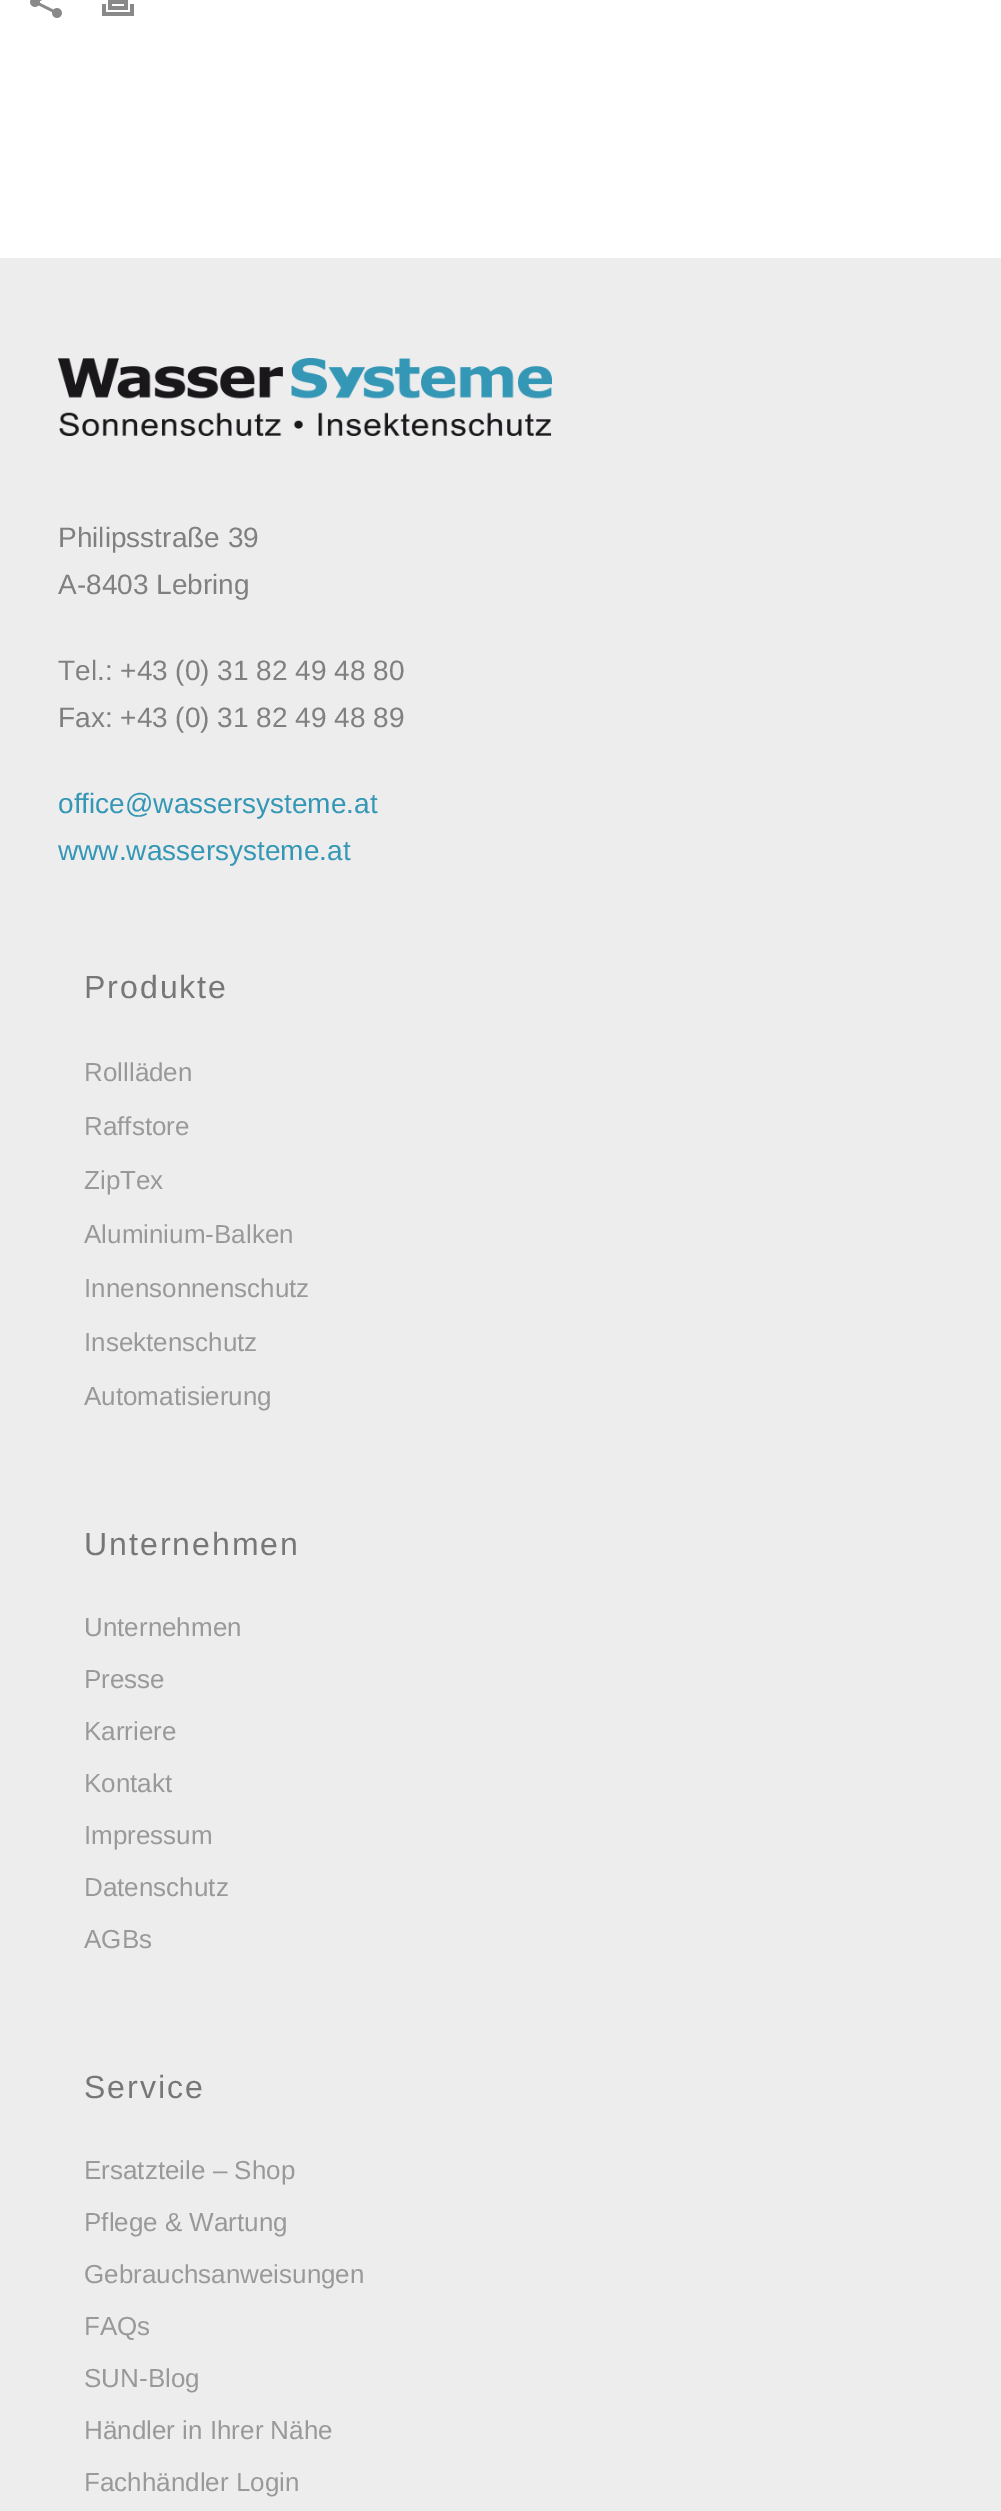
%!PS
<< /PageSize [1001 2511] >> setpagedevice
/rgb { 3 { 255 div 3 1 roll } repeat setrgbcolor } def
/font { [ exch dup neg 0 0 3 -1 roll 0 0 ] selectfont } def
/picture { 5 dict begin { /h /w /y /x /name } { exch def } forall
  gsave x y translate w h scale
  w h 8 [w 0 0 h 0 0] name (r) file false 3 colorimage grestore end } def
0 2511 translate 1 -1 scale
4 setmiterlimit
255 255 255 rgb
0 0 1001 2511 rectfill
(img/1.rgb) 30 0 32 18 picture
(img/2.rgb) 102 0 32 16 picture
237 237 237 rgb
0 258 1001 2253 rectfill
(img/3.rgb) 58 358 494 78 picture
/LiberationSans-Regular 28 font
128 128 128 rgb
[
  [(Philipsstraße 39) 58 547]
  [(A-8403 Lebring) 58 594]
  [(Tel.: +43 \(0\) 31 82 49 48 80) 58 680]
  [(Fax: +43 \(0\) 31 82 49 48 89) 58 727]
] { aload pop moveto show } forall
52 151 181 rgb
58 813 moveto (office@wassersysteme.at) show
58 860 moveto (www.wassersysteme.at) show
/LiberationSans-Regular 32 font
119 119 119 rgb
84 998 moveto 2 0 (Produkte) ashow
/LiberationSans-Regular 26 font
153 153 153 rgb
[
  [(Rollläden) 84 1081]
  [(Raffstore) 84 1135]
  [(ZipTex) 84 1189]
  [(Aluminium-Balken) 84 1243]
  [(Innensonnenschutz) 84 1297]
  [(Insektenschutz) 84 1351]
  [(Automatisierung) 84 1405]
] { aload pop moveto show } forall
/LiberationSans-Regular 32 font
119 119 119 rgb
84 1555 moveto 2 0 (Unternehmen) ashow
/LiberationSans-Regular 26 font
153 153 153 rgb
[
  [(Unternehmen) 84 1636]
  [(Presse) 84 1688]
  [(Karriere) 84 1740]
  [(Kontakt) 84 1792]
  [(Impressum) 84 1844]
  [(Datenschutz) 84 1896]
  [(AGBs) 84 1948]
] { aload pop moveto show } forall
/LiberationSans-Regular 32 font
119 119 119 rgb
84 2098 moveto 2 0 (Service) ashow
/LiberationSans-Regular 26 font
153 153 153 rgb
[
  [(Ersatzteile – Shop) 84 2179]
  [(Pflege & Wartung) 84 2231]
  [(Gebrauchsanweisungen) 84 2283]
  [(FAQs) 84 2335]
  [(SUN-Blog) 84 2387]
  [(Händler in Ihrer Nähe) 84 2439]
  [(Fachhändler Login) 84 2491]
] { aload pop moveto show } forall
showpage
